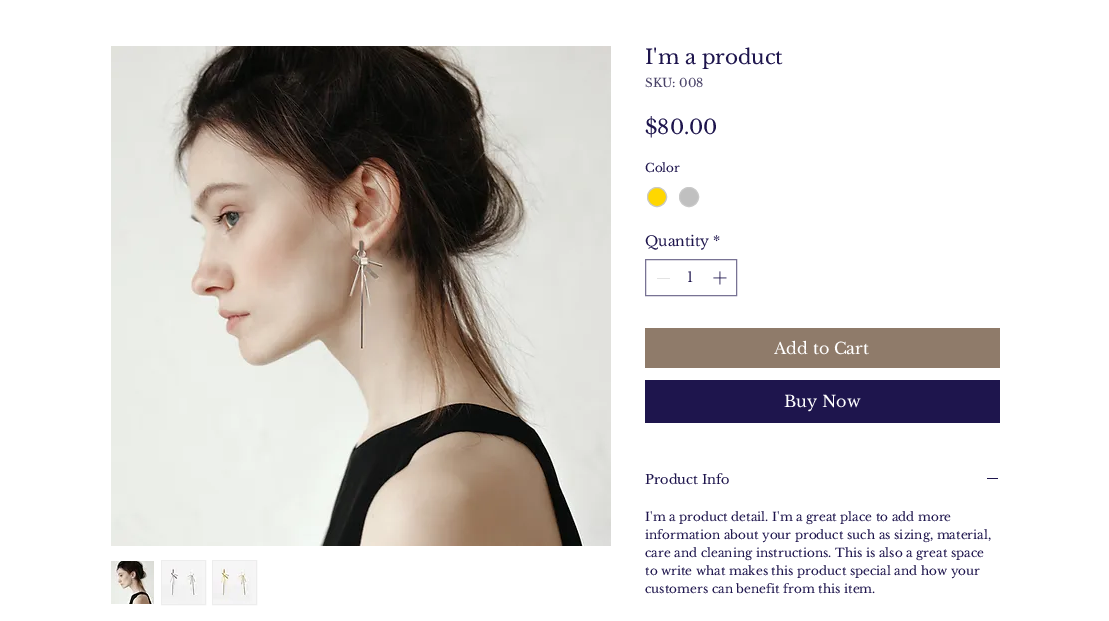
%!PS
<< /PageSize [1109 621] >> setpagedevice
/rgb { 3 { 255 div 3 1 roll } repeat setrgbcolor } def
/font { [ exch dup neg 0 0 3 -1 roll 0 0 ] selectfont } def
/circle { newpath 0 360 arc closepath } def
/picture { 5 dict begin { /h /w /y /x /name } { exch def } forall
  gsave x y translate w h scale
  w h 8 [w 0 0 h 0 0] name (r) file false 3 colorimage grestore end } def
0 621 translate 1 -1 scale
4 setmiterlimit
255 255 255 rgb
0 0 1109 621 rectfill
(img/1.rgb) 111 46 500 500 picture
(img/2.rgb) 111 561 43 43 picture
237 237 237 rgb
161.5 560.5 44 44 rectstroke
(img/3.rgb) 162 561 43 43 picture
212.5 560.5 44 44 rectstroke
(img/4.rgb) 213 561 43 43 picture
255 215 0 rgb
657 197 9.5 circle gsave fill grestore
201 201 201 rgb
stroke
192 192 192 rgb
689 197 9.5 circle gsave fill grestore
201 201 201 rgb
stroke
120 115 148 rgb
645.5 259.5 91 36 rectstroke
227 227 227 rgb
657 278 13 1 rectfill
(img/5.rgb) 713 271 14 14 picture
[
  [645 328 355 40 143 123 106]
  [645 380 355 43 30 21 77]
  [987 478 11 1 30 21 77]
] { aload pop rgb rectfill } forall
/LibreBaskerville-Regular 20 font
645 64 moveto (I'm a product) show
/LibreBaskerville-Regular 12 font
72 65 103 rgb
645 87 moveto (SKU: 008) show
/LibreBaskerville-Regular 20 font
30 21 77 rgb
645 134 moveto ($80.00) show
/LibreBaskerville-Regular 12 font
645 172 moveto (Color) show
/LibreBaskerville-Regular 14 font
645 246 moveto (Quantity *) show
687 282 moveto (1) show
/LibreBaskerville-Regular 16 font
255 255 255 rgb
774 354 moveto (Add to Cart) show
784 407 moveto (Buy Now) show
/LibreBaskerville-Regular 13 font
30 21 77 rgb
645 484 moveto (Product Info) show
/LibreBaskerville-Regular 12 font
[
  [(I'm a product detail. I'm a great place to add more) 645 521]
  [(information about your product such as sizing, material,) 645 539]
  [(care and cleaning instructions. This is also a great space) 645 557]
  [(to write what makes this product special and how your) 645 575]
  [(customers can benefit from this item.) 645 593]
] { aload pop moveto show } forall
showpage
